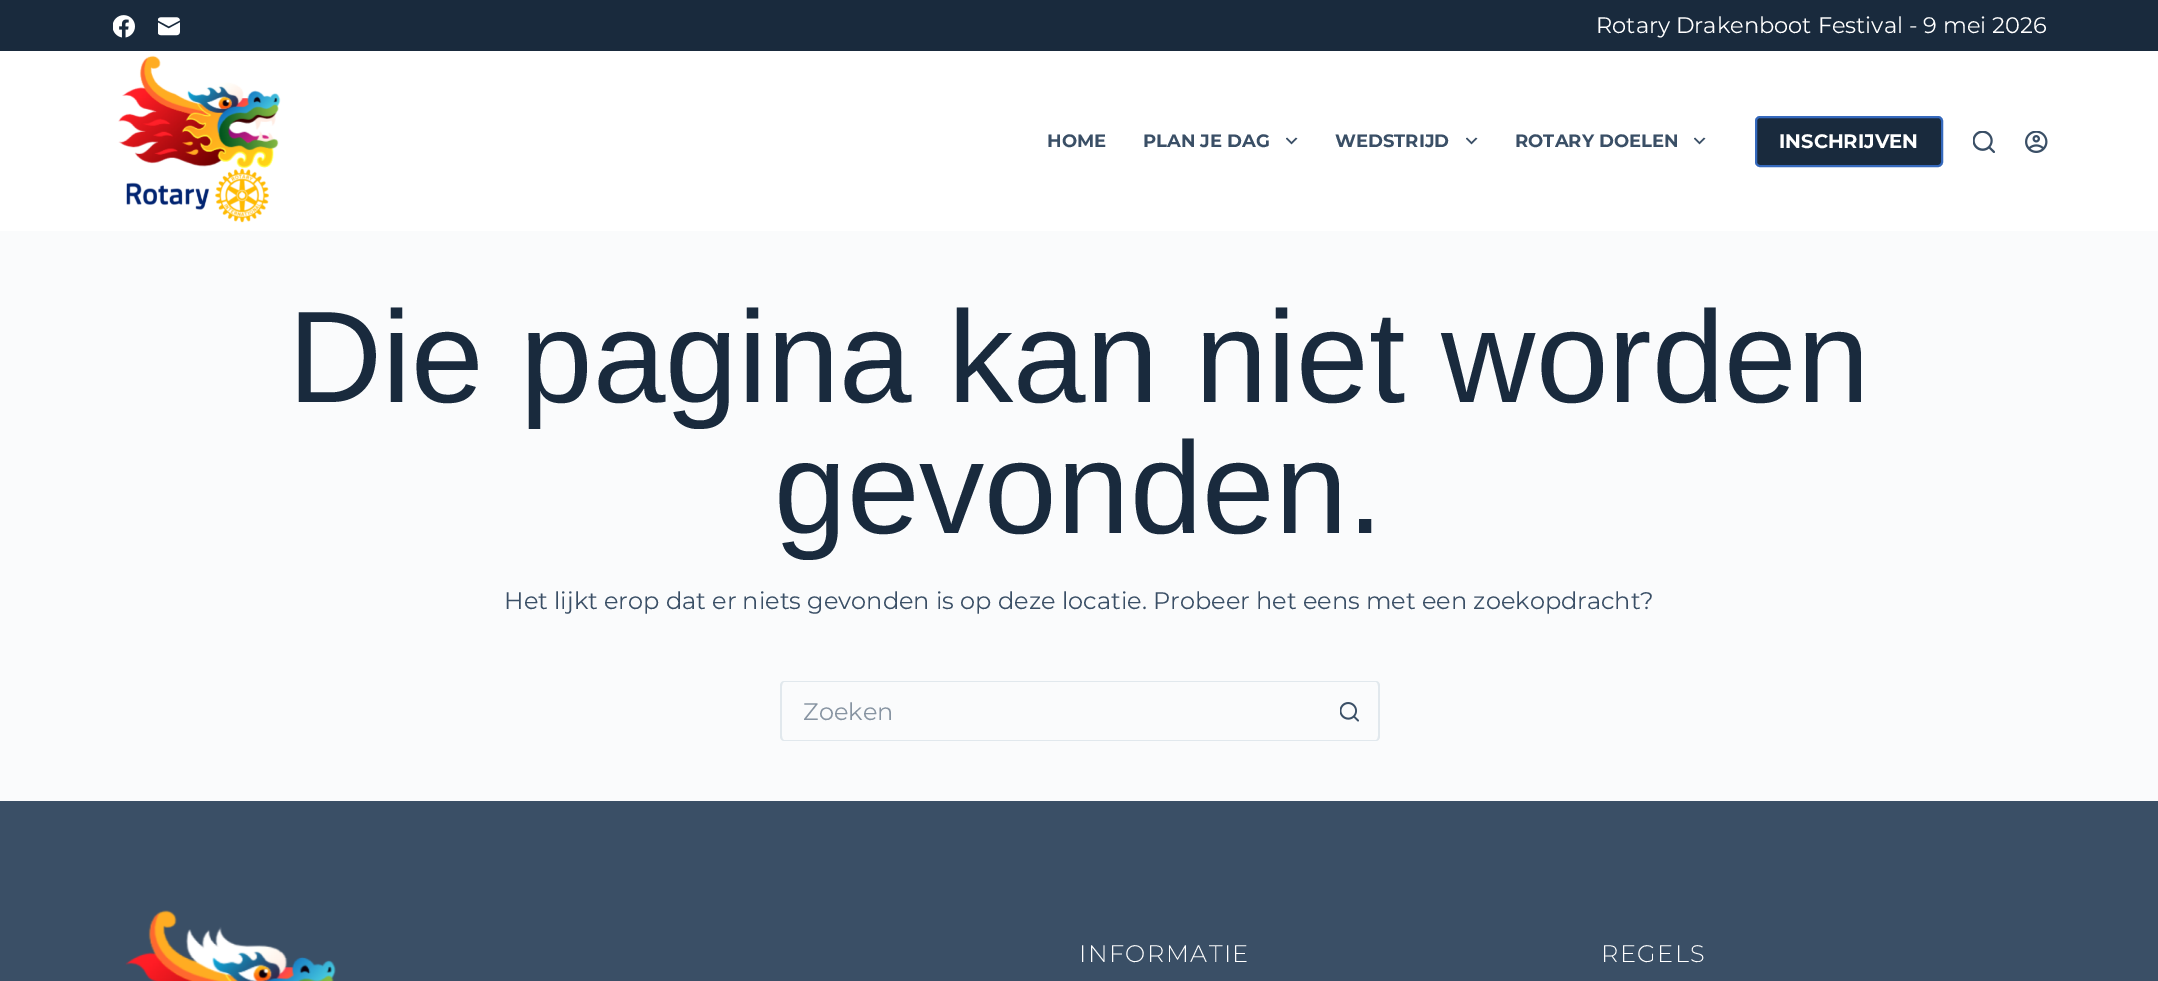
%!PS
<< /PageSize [2158 981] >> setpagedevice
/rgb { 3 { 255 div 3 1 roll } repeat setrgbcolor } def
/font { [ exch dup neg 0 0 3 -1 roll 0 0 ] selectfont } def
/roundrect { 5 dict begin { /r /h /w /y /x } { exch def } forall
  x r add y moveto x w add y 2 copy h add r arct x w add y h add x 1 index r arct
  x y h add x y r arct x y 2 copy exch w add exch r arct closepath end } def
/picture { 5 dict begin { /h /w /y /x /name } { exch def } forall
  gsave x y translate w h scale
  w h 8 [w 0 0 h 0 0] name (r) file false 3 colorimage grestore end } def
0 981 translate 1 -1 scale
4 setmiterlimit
250 251 252 rgb
0 0 2158 981 rectfill
25 42 61 rgb
0 0 2158 51 rectfill
(img/1.rgb) 113 15 22 23 picture
(img/2.rgb) 158 17 22 19 picture
255 255 255 rgb
0 51 2158 180 rectfill
(img/3.rgb) 118 55 163 168 picture
(img/4.rgb) 1286 137 12 8 picture
(img/4.rgb) 1466 137 12 8 picture
(img/4.rgb) 1694 137 12 8 picture
25 42 61 rgb
1756 117 186 49 4 roundrect gsave fill grestore
53 105 189 rgb
2 setlinewidth
stroke
(img/5.rgb) 1973 131 22 22 picture
(img/6.rgb) 2025 131 23 22 picture
225 232 237 rgb
784 681 moveto 1320 681 lineto 1320 741 lineto 784 741 lineto 782 741 780 739 780 736 curveto 780 686 lineto 780 683 782 681 784 681 curveto closepath 784 682 moveto 1320 682 lineto 1320 740 lineto 784 740 lineto 783 740 782 738 782 736 curveto 782 686 lineto 782 684 783 682 784 682 curveto closepath eofill
1320 681 moveto 1376 681 lineto 1378 681 1380 683 1380 686 curveto 1380 736 lineto 1380 739 1378 741 1376 741 curveto 1320 741 lineto closepath 1320 682 moveto 1376 682 lineto 1377 682 1378 684 1378 686 curveto 1378 736 lineto 1378 738 1377 740 1376 740 curveto 1320 740 lineto closepath eofill
(img/7.rgb) 1340 702 19 20 picture
58 79 102 rgb
0 801 2158 180 rectfill
(img/8.rgb) 125 910 211 71 picture
/Montserrat-Regular 22.5 font
255 255 255 rgb
1596 33 moveto (Rotary Drakenboot Festival - 9 mei 2026) show
/Montserrat-Bold 18 font
58 79 102 rgb
[
  [(HOME) 1047 147]
  [(PLAN JE DAG) 1143 147]
  [(WEDSTRIJD) 1335 147]
  [(ROTARY DOELEN) 1515 147]
] { aload pop moveto show } forall
/Montserrat-Bold 19.5 font
255 255 255 rgb
1779 148 moveto (INSCHRIJVEN) show
/LiberationSans-Regular 130.5 font
25 42 61 rgb
288 402 moveto (Die pagina kan niet worden) show
774 533 moveto (gevonden.) show
/Montserrat-Regular 24 font
58 79 102 rgb
504 609 moveto (Het lijkt erop dat er niets gevonden is op deze locatie. Probeer het eens met een zoekopdracht?) show
135 148 162 rgb
803 720 moveto (Zoeken) show
/Montserrat-Light 24 font
255 255 255 rgb
1079 962 moveto 1.5 0 (INFORMATIE) ashow
1601 962 moveto 1.5 0 (REGELS) ashow
showpage
